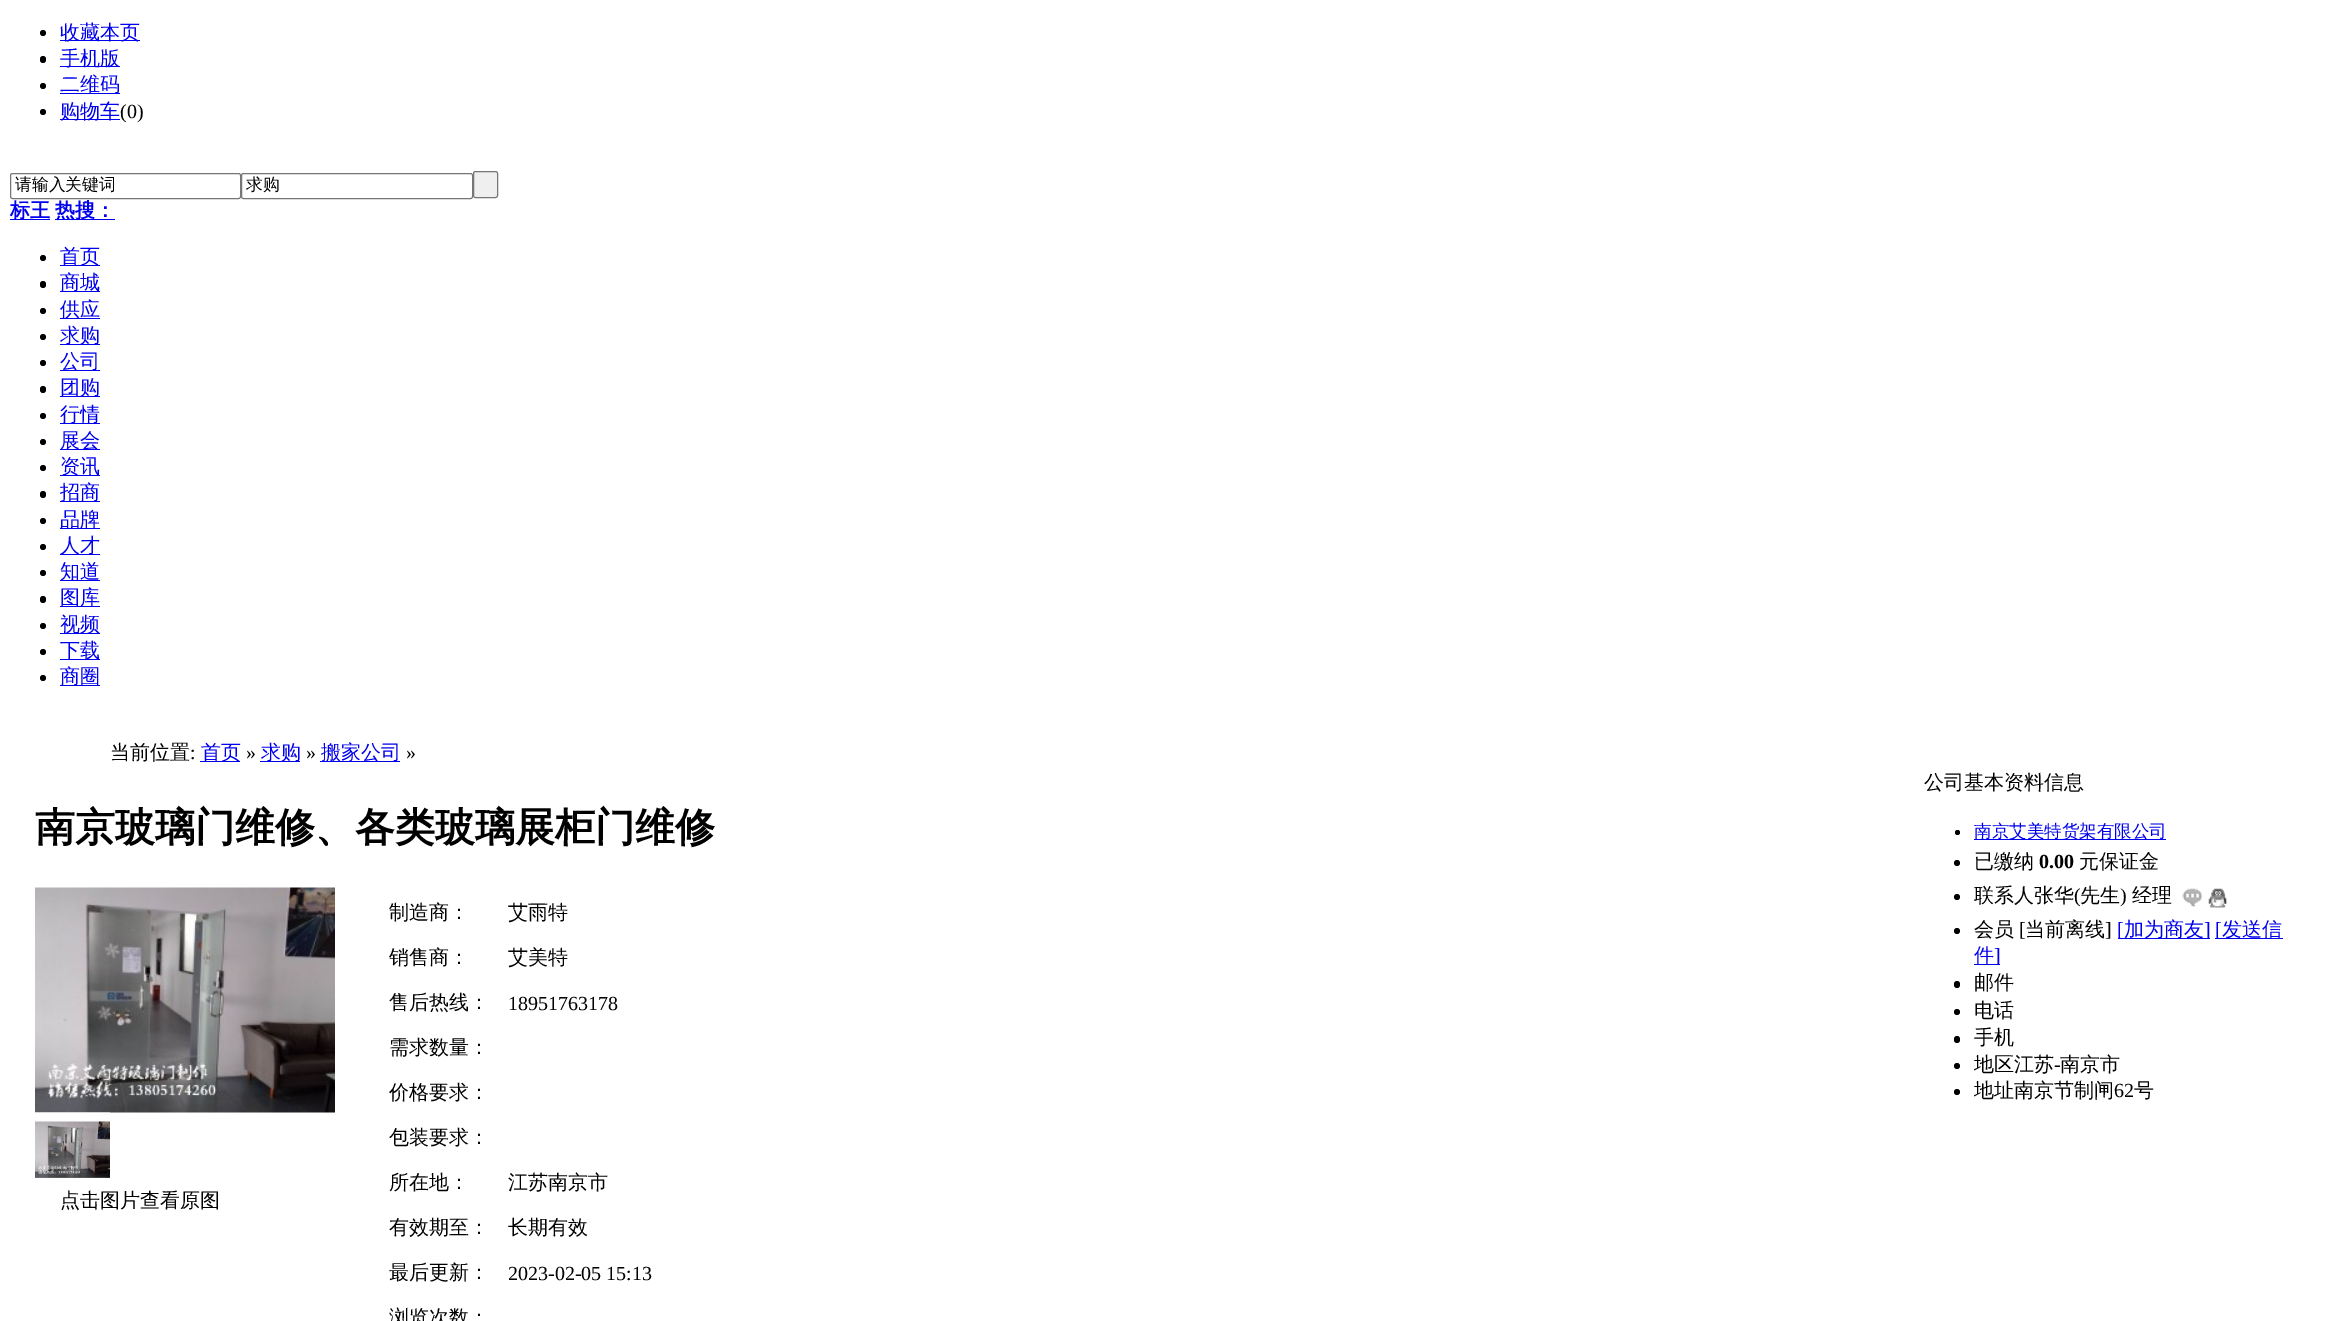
%!PS
<< /PageSize [2330 1321] >> setpagedevice
/rgb { 3 { 255 div 3 1 roll } repeat setrgbcolor } def
/font { [ exch dup neg 0 0 3 -1 roll 0 0 ] selectfont } def
/circle { newpath 0 360 arc closepath } def
/roundrect { 5 dict begin { /r /h /w /y /x } { exch def } forall
  x r add y moveto x w add y 2 copy h add r arct x w add y h add x 1 index r arct
  x y h add x y r arct x y 2 copy exch w add exch r arct closepath end } def
/picture { 5 dict begin { /h /w /y /x /name } { exch def } forall
  gsave x y translate w h scale
  w h 8 [w 0 0 h 0 0] name (r) file false 3 colorimage grestore end } def
0 1321 translate 1 -1 scale
4 setmiterlimit
255 255 255 rgb
0 0 2330 1321 rectfill
0 0 0 rgb
43 33 3 circle fill
0 0 238 rgb
60 40 80 1 rectfill
0 0 0 rgb
40 56 6 7 3 roundrect fill
0 0 238 rgb
60 66 60 1 rectfill
0 0 0 rgb
43 86 3 circle fill
0 0 238 rgb
60 93 60 1 rectfill
0 0 0 rgb
43 112 3 circle fill
0 0 238 rgb
60 119 60 1 rectfill
118 118 118 rgb
10.5 173.5 230 25 2 roundrect stroke
241.5 173.5 231 25 2 roundrect stroke
239 239 239 rgb
473.5 171.5 24 26 2 roundrect gsave fill grestore
118 118 118 rgb
stroke
0 0 238 rgb
10 219 40 1 rectfill
55 219 60 1 rectfill
0 0 0 rgb
43 258 3 circle fill
0 0 238 rgb
60 265 40 1 rectfill
0 0 0 rgb
40 281 6 7 3 roundrect fill
0 0 238 rgb
60 291 40 1 rectfill
0 0 0 rgb
43 311 3 circle fill
0 0 238 rgb
60 318 40 1 rectfill
0 0 0 rgb
43 337 3 circle fill
0 0 238 rgb
60 344 40 1 rectfill
0 0 0 rgb
43 363 3 circle fill
0 0 238 rgb
60 370 40 1 rectfill
0 0 0 rgb
40 386 6 7 3 roundrect fill
0 0 238 rgb
60 396 40 1 rectfill
0 0 0 rgb
43 416 3 circle fill
0 0 238 rgb
60 423 40 1 rectfill
0 0 0 rgb
43 442 3 circle fill
0 0 238 rgb
60 449 40 1 rectfill
0 0 0 rgb
43 468 3 circle fill
0 0 238 rgb
60 475 40 1 rectfill
0 0 0 rgb
40 491 6 7 3 roundrect fill
0 0 238 rgb
60 501 40 1 rectfill
0 0 0 rgb
43 521 3 circle fill
0 0 238 rgb
60 528 40 1 rectfill
0 0 0 rgb
43 547 3 circle fill
0 0 238 rgb
60 554 40 1 rectfill
0 0 0 rgb
43 573 3 circle fill
0 0 238 rgb
60 580 40 1 rectfill
0 0 0 rgb
40 596 6 7 3 roundrect fill
0 0 238 rgb
60 606 40 1 rectfill
0 0 0 rgb
43 626 3 circle fill
0 0 238 rgb
60 633 40 1 rectfill
0 0 0 rgb
43 652 3 circle fill
0 0 238 rgb
60 659 40 1 rectfill
0 0 0 rgb
43 678 3 circle fill
[
  [60 685 40 1 0 0 238]
  [200 761 40 1 0 0 238]
  [260 761 40 1 0 0 238]
  [320 761 80 1 0 0 238]
] { aload pop rgb rectfill } forall
(img/1.rgb) 35 887 300 226 picture
(img/2.rgb) 35 1112 75 66 picture
0 0 0 rgb
1957.5 832.5 2.5 circle fill
0 0 238 rgb
1974 839 192 1 rectfill
0 0 0 rgb
1957 863 3 circle fill
1957 897 3 circle fill
(img/3.rgb) 2182 888 21 19 picture
(img/4.rgb) 2208 888 19 20 picture
1957 931 3 circle fill
[
  [2118 938 92 1 0 0 238]
  [2215 938 68 1 0 0 238]
  [1974 964 26 1 0 0 238]
] { aload pop rgb rectfill } forall
0 0 0 rgb
1954 981 6 7 3 roundrect fill
1957 1012 3 circle fill
1954 1036 6 7 3 roundrect fill
1957 1066 3 circle fill
1957 1092 3 circle fill
/WenQuanYiZenHei-Medium 20 font
0 0 238 rgb
[
  [(收藏本页) 60 39]
  [(手机版) 60 65]
  [(二维码) 60 91]
  [(购物车) 60 118]
] { aload pop moveto show } forall
/LiberationSerif-Regular 20 font
0 0 0 rgb
120 118 moveto (\(0\)) show
/WenQuanYiZenHei-Medium 16.75 font
15 190 moveto (请输入关键词) show
246 190 moveto (求购) show
/WenQuanYiZenHei-Bold 20 font
0 0 238 rgb
10 217 moveto (标王) show
55 217 moveto (热搜：) show
/WenQuanYiZenHei-Medium 20 font
[
  [(首页) 60 263]
  [(商城) 60 289]
  [(供应) 60 316]
  [(求购) 60 342]
  [(公司) 60 368]
  [(团购) 60 394]
  [(行情) 60 421]
  [(展会) 60 447]
  [(资讯) 60 473]
  [(招商) 60 499]
  [(品牌) 60 526]
  [(人才) 60 552]
  [(知道) 60 578]
  [(图库) 60 604]
  [(视频) 60 631]
  [(下载) 60 657]
  [(商圈) 60 683]
] { aload pop moveto show } forall
0 0 0 rgb
110 759 moveto (当前位置) show
/LiberationSerif-Regular 20 font
190 759 moveto (:) show
/WenQuanYiZenHei-Medium 20 font
0 0 238 rgb
201 759 moveto (首页) show
/LiberationSerif-Regular 20 font
0 0 0 rgb
246 759 moveto (») show
/WenQuanYiZenHei-Medium 20 font
0 0 238 rgb
261 759 moveto (求购) show
/LiberationSerif-Regular 20 font
0 0 0 rgb
306 759 moveto (») show
/WenQuanYiZenHei-Medium 20 font
0 0 238 rgb
321 759 moveto (搬家公司) show
/LiberationSerif-Regular 20 font
0 0 0 rgb
406 759 moveto (») show
/WenQuanYiZenHei-Bold 40 font
35 841 moveto (南京玻璃门维修、各类玻璃展柜门维修) show
/WenQuanYiZenHei-Medium 20 font
[
  [(点击图片查看原图) 60 1207]
  [(制造商：) 389 919]
  [(艾雨特) 508 919]
  [(销售商：) 389 964]
  [(艾美特) 508 964]
  [(售后热线：) 389 1009]
] { aload pop moveto show } forall
/LiberationSerif-Regular 20 font
508 1010 moveto (18951763178) show
/WenQuanYiZenHei-Medium 20 font
[
  [(需求数量：) 389 1054]
  [(价格要求：) 389 1099]
  [(包装要求：) 389 1144]
  [(所在地：) 389 1189]
  [(江苏南京市) 508 1189]
  [(有效期至：) 389 1234]
  [(长期有效) 508 1234]
  [(最后更新：) 389 1279]
] { aload pop moveto show } forall
/LiberationSerif-Regular 20 font
508 1280 moveto (2023-02-05 15:13) show
/WenQuanYiZenHei-Medium 20 font
389 1324 moveto (浏览次数：) show
1924 789 moveto (公司基本资料信息) show
/WenQuanYiZenHei-Medium 17.5 font
0 0 238 rgb
1974 837 moveto (南京艾美特货架有限公司) show
/WenQuanYiZenHei-Medium 20 font
0 0 0 rgb
1974 868 moveto (已缴纳) show
/LiberationSerif-Bold 20 font
2039 868 moveto (0.00) show
/WenQuanYiZenHei-Medium 20 font
2079 868 moveto (元保证金) show
1974 902 moveto (联系人张华) show
/LiberationSerif-Regular 20 font
2074 902 moveto (\() show
/WenQuanYiZenHei-Medium 20 font
2080 902 moveto (先生) show
/LiberationSerif-Regular 20 font
2120 902 moveto (\)) show
/WenQuanYiZenHei-Medium 20 font
2132 902 moveto (经理) show
1974 936 moveto (会员) show
/LiberationSerif-Regular 20 font
2019 936 moveto ([) show
/WenQuanYiZenHei-Medium 20 font
2025 936 moveto (当前离线) show
/LiberationSerif-Regular 20 font
2105 936 moveto (]) show
0 0 238 rgb
2117 936 moveto ([) show
/WenQuanYiZenHei-Medium 20 font
2124 936 moveto (加为商友) show
/LiberationSerif-Regular 20 font
2204 936 moveto (]) show
2215 936 moveto ([) show
/WenQuanYiZenHei-Medium 20 font
2222 936 moveto (发送信) show
1974 962 moveto (件) show
/LiberationSerif-Regular 20 font
1994 962 moveto (]) show
/WenQuanYiZenHei-Medium 20 font
0 0 0 rgb
[
  [(邮件) 1974 989]
  [(电话) 1974 1017]
  [(手机) 1974 1044]
  [(地区江苏) 1974 1071]
] { aload pop moveto show } forall
/LiberationSerif-Regular 20 font
2054 1071 moveto (-) show
/WenQuanYiZenHei-Medium 20 font
2060 1071 moveto (南京市) show
1974 1097 moveto (地址南京节制闸) show
/LiberationSerif-Regular 20 font
2114 1097 moveto (62) show
/WenQuanYiZenHei-Medium 20 font
2134 1097 moveto (号) show
showpage
